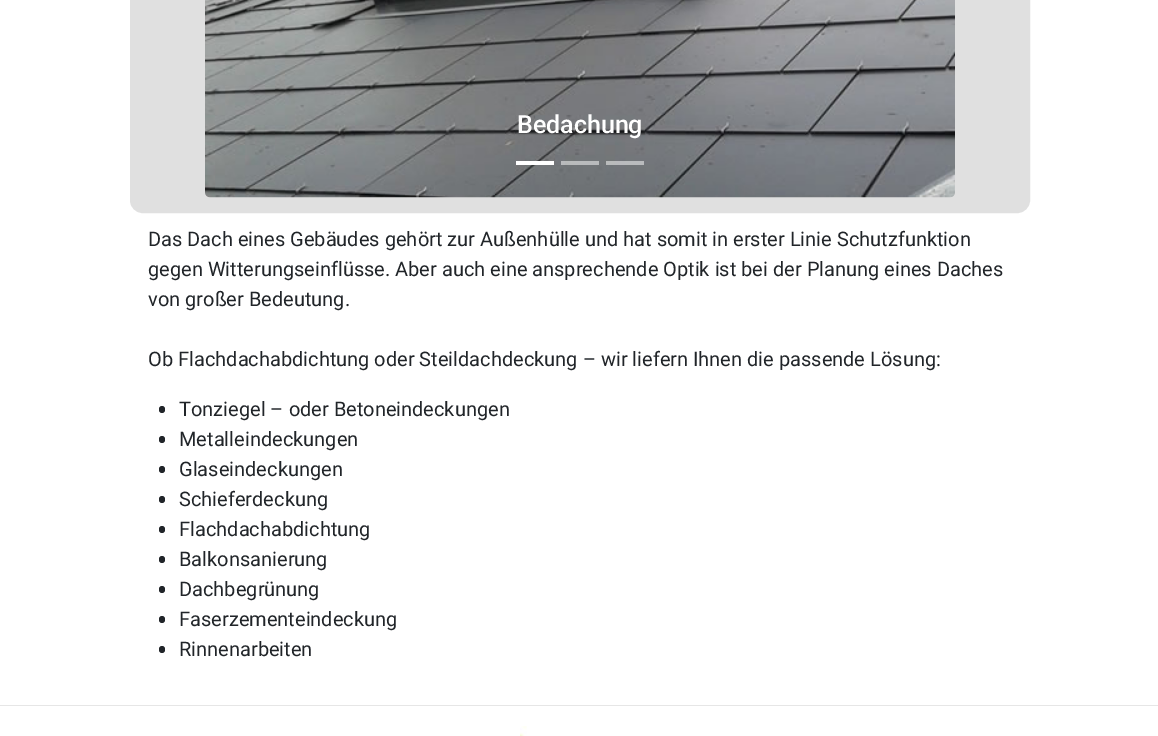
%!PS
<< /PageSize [1158 736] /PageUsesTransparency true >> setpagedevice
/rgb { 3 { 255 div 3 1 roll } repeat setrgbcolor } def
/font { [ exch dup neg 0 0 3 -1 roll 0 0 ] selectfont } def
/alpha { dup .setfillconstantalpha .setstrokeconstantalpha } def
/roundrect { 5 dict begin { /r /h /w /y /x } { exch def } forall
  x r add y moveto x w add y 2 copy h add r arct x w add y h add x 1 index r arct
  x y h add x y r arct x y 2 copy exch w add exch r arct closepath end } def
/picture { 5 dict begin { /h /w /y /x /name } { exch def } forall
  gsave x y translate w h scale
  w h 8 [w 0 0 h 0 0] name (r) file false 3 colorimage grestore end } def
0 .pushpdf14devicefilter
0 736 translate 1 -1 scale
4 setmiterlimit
255 255 255 rgb
0 0 1158 736 rectfill
224 224 224 rgb
137.5 -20.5 885 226 5.5 roundrect gsave fill grestore
15 setlinewidth
stroke
(img/1.rgb) 205 0 750 198 picture
[
  [516 161 38 4 255 255 255]
] { aload pop rgb rectfill } forall
0.5 alpha
[
  [561 161 38 4 255 255 255]
  [606 161 38 4 255 255 255]
] { aload pop rgb rectfill } forall
1 alpha
33 37 41 rgb
159 406 6 7 3 roundrect fill
159 436 6 7 3 roundrect fill
159 466 6 7 3 roundrect fill
159 496 6 7 3 roundrect fill
159 526 6 7 3 roundrect fill
159 556 6 7 3 roundrect fill
159 586 6 7 3 roundrect fill
159 616 6 7 3 roundrect fill
159 646 6 7 3 roundrect fill
230 230 230 rgb
0 705 1158 1 rectfill
(img/2.rgb) 520 726 7 10 picture
/Roboto-Medium 25 font
255 255 255 rgb
517 133 moveto (Bedachung) show
/Roboto-Regular 20 font
33 37 41 rgb
[
  [(Das Dach eines Gebäudes gehört zur Außenhülle und hat somit in erster Linie Schutzfunktion) 148 246]
  [(gegen Witterungseinflüsse. Aber auch eine ansprechende Optik ist bei der Planung eines Daches) 148 276]
  [(von großer Bedeutung.) 148 306]
  [(Ob Flachdachabdichtung oder Steildachdeckung – wir liefern Ihnen die passende Lösung:) 148 366]
  [(Tonziegel – oder Betoneindeckungen) 179 416]
  [(Metalleindeckungen) 179 446]
  [(Glaseindeckungen) 179 476]
  [(Schieferdeckung) 179 506]
  [(Flachdachabdichtung) 179 536]
  [(Balkonsanierung) 179 566]
  [(Dachbegrünung) 179 596]
  [(Faserzementeindeckung) 179 626]
  [(Rinnenarbeiten) 179 656]
] { aload pop moveto show } forall
.poppdf14devicefilter showpage
